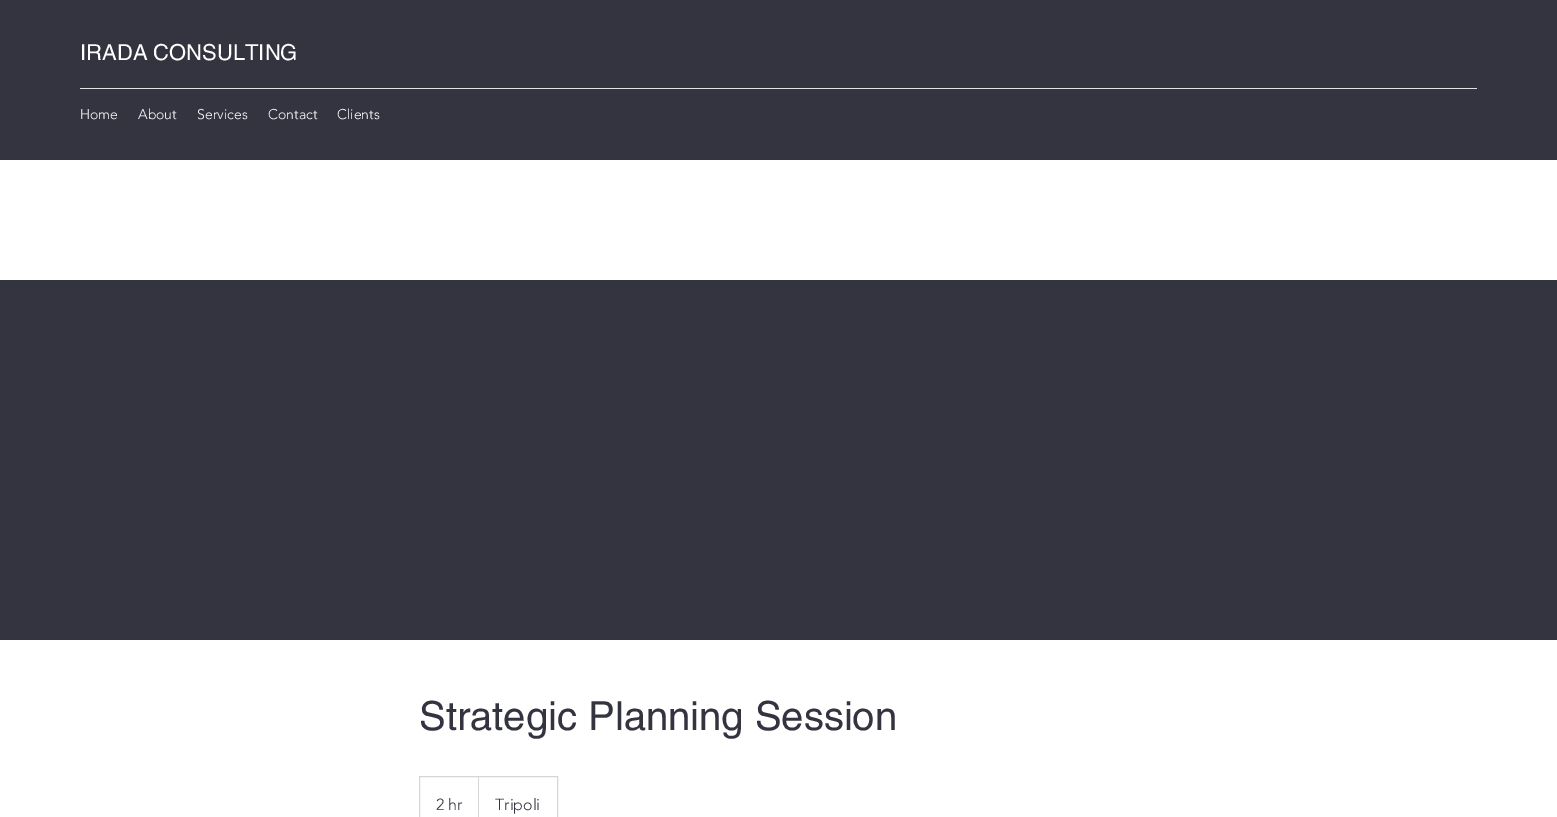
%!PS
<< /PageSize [1557 817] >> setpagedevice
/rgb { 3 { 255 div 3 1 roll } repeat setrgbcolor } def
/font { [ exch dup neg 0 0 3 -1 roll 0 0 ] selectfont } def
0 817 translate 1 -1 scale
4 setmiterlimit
255 255 255 rgb
0 0 1557 817 rectfill
[
  [0 0 1557 160 51 52 63]
  [80 88 1397 1 224 225 226]
  [0 280 1557 360 51 52 63]
] { aload pop rgb rectfill } forall
214 214 217 rgb
419.5 776.5 138 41 rectstroke
478 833 moveto 478 776 lineto 479 777 lineto 479 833 lineto closepath fill
/helvetica-Regular 22 font
255 255 255 rgb
80 60 moveto (IRADA CONSULTING) show
/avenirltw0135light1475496-Light 14 font
[
  [(Home) 80 119]
  [(About) 138 119]
  [(Services) 197 119]
  [(Contact) 268 119]
  [(Clients) 337 119]
] { aload pop moveto show } forall
/helvetica-Regular 40 font
51 52 63 rgb
419 730 moveto (Strategic Planning Session) show
/avenirltw0135light1475496-Light 16 font
436 810 moveto (2 hr) show
495 810 moveto (Tripoli) show
showpage
